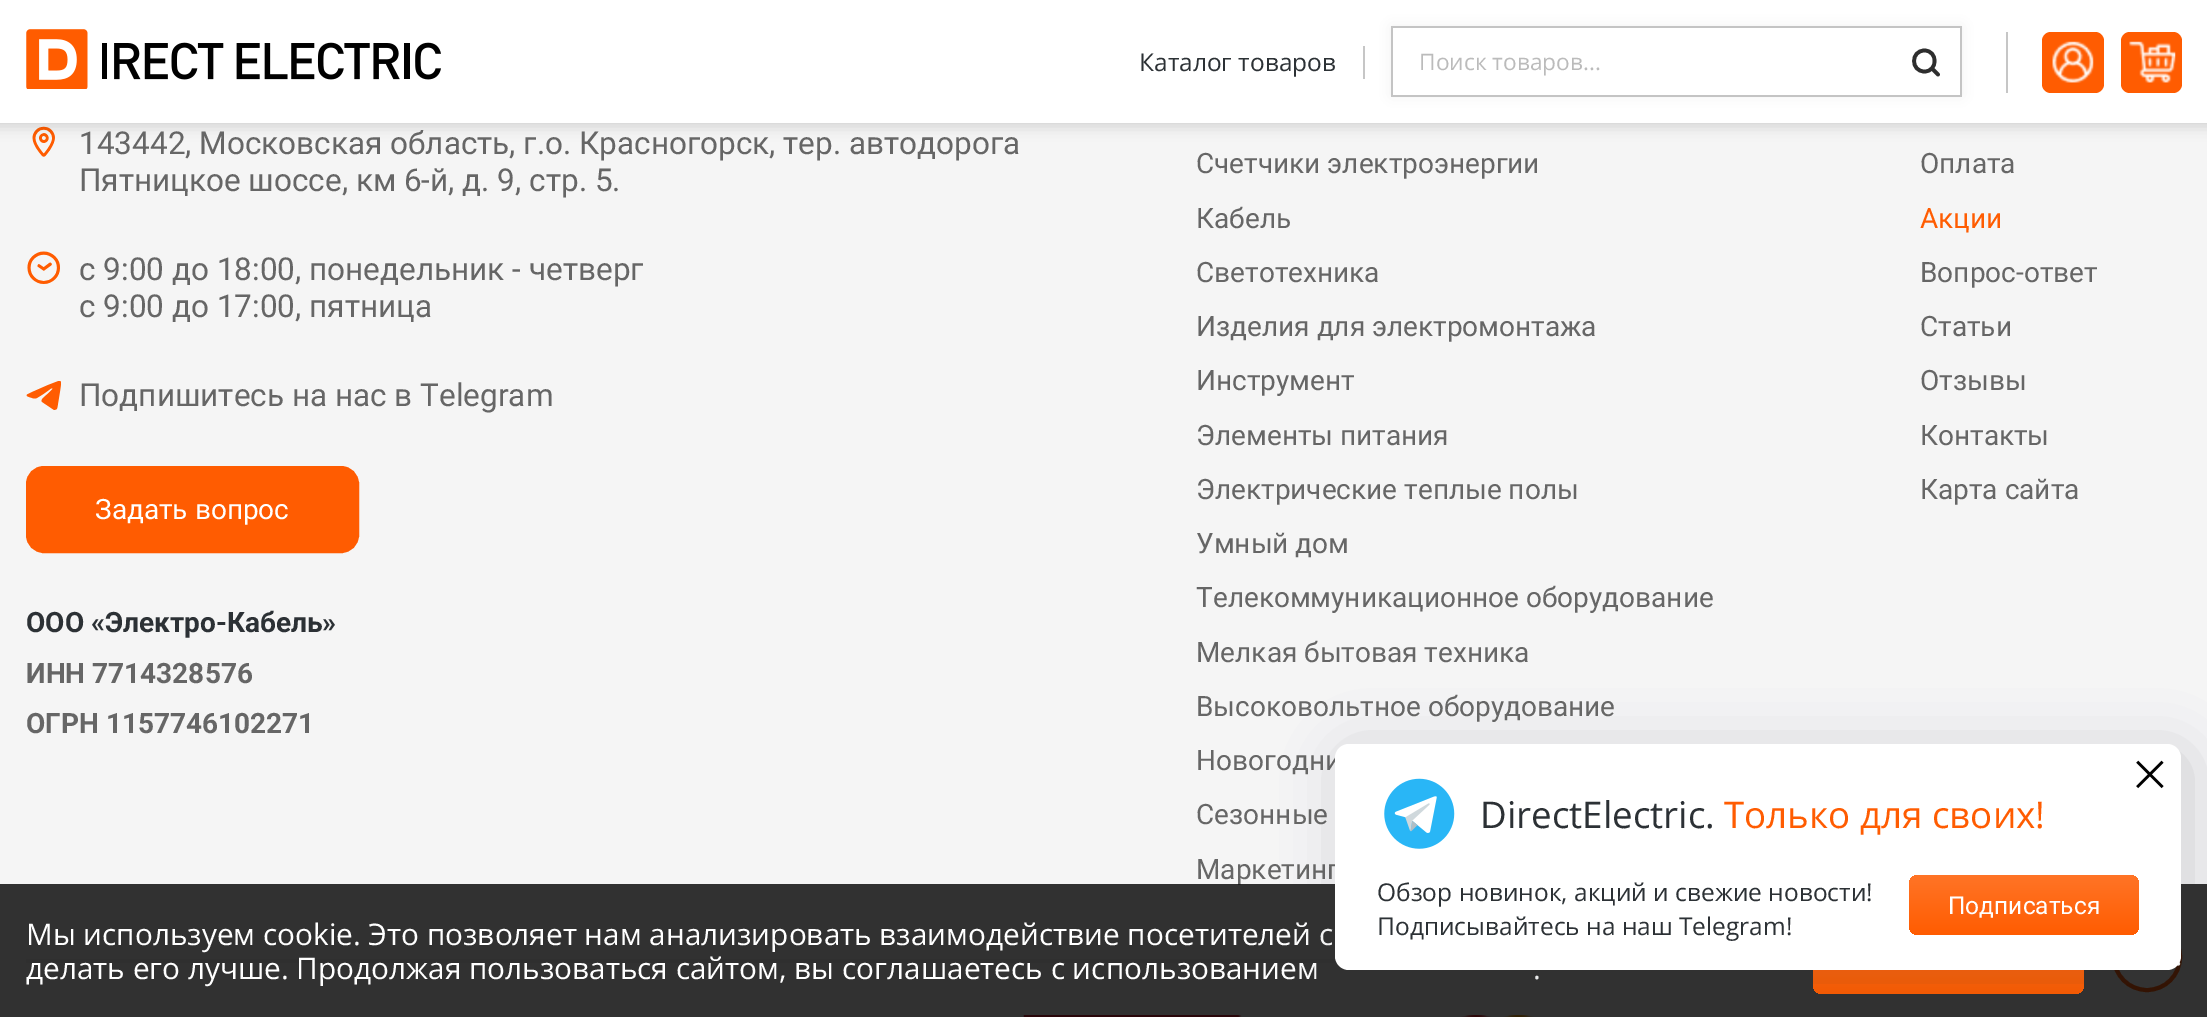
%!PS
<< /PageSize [2207 1017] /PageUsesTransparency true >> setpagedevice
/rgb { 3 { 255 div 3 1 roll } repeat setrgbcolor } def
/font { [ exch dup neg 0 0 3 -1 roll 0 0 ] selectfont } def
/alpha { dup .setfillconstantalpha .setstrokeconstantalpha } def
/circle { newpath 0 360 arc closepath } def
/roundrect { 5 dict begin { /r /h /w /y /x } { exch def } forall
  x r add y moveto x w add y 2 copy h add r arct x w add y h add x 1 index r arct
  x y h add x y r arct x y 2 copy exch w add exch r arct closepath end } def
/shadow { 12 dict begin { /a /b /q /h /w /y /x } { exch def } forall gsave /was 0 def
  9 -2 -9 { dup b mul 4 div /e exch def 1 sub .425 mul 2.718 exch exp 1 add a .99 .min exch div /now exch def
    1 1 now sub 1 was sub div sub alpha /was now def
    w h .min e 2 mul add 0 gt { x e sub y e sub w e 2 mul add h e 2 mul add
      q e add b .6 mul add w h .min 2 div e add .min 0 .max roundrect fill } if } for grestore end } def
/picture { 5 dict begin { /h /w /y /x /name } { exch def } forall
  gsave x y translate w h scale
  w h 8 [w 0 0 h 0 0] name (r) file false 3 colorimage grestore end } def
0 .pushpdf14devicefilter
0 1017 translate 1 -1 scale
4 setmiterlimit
245 245 245 rgb
0 0 2207 1017 rectfill
(img/4.rgb) 32 126 23 31 picture
0 0 0 rgb
-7 -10 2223 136 0 7 0.15 shadow
255 255 255 rgb
0 0 2207 123 rectfill
(img/1.rgb) 26 29 415 60 picture
198 198 198 rgb
1363 46 2 33 rectfill
0 0 0 rgb
1391 26 571 70 0 7 0.05 shadow
[
  [1393 28 567 67 255 255 255]
  [1391 26 571 2 196 196 196]
  [1391 95 501 2 196 196 196]
  [1391 26 2 70 196 196 196]
  [1960 26 2 70 196 196 196]
  [1892 95 70 2 196 196 196]
] { aload pop rgb rectfill } forall
46 46 46 rgb
3.7 setlinewidth
1 setlinecap
1 setlinejoin
1924.5 71.5 moveto 1938 71.5 1938 50.5 1924.5 50.5 curveto 1910.5 50.5 1910.5 71.5 1924.5 71.5 curveto closepath 1932 68.5 moveto 1938 74.5 lineto stroke
198 198 198 rgb
2006 32 2 61 rectfill
255 92 1 rgb
2042 32 62 61 9 roundrect fill
(img/2.rgb) 2052 41 42 42 picture
2121 32 61 61 9 roundrect fill
(img/3.rgb) 2129 41 47 42 picture
233 233 233 rgb
26 959 2156 4 rectfill
(img/5.rgb) 27 251 33 33 picture
(img/6.rgb) 26 381 35 29 picture
255 92 1 rgb
28 468 329 83 16 roundrect gsave fill grestore
4 setlinewidth
0 setlinecap
0 setlinejoin
stroke
(img/7.rgb) 1023 1015 511 2 picture
255 255 255 rgb
2147 957 33 circle gsave fill grestore
255 92 1 rgb
stroke
/OpenSans-Regular 24.5 font
44 49 53 rgb
1139 71 moveto (Каталог товаров) show
/OpenSans-Regular 22.75 font
187 187 187 rgb
1419 70 moveto (Поиск товаров...) show
/Roboto-Regular 31.5 font
102 102 102 rgb
[
  [(143442, Московская область, г.о. Красногорск, тер. автодорога) 79 154]
  [(Пятницкое шоссе, км 6-й, д. 9, стр. 5.) 79 191]
  [(с 9:00 до 18:00, понедельник - четверг) 79 280]
  [(с 9:00 до 17:00, пятница) 79 317]
  [(Подпишитесь на нас в Telegram) 79 406]
] { aload pop moveto show } forall
/Roboto-Regular 28 font
255 255 255 rgb
95 519 moveto (Задать вопрос) show
/Roboto-Bold 28 font
44 49 53 rgb
26 632 moveto (ООО «Электро-Кабель») show
102 102 102 rgb
26 683 moveto (ИНН 7714328576) show
26 733 moveto (ОГРН 1157746102271) show
/Roboto-Regular 28 font
[
  [(Счетчики электроэнергии) 1196 173]
  [(Кабель) 1196 228]
  [(Светотехника) 1196 282]
  [(Изделия для электромонтажа) 1196 336]
  [(Инструмент) 1196 390]
  [(Элементы питания) 1196 445]
  [(Электрические теплые полы) 1196 499]
  [(Умный дом) 1196 553]
  [(Телекоммуникационное оборудование) 1196 607]
  [(Мелкая бытовая техника) 1196 662]
  [(Высоковольтное оборудование) 1196 716]
  [(Новогодни) 1196 770]
  [(Сезонные) 1196 824]
  [(Маркетинг) 1196 879]
  [(Оплата) 1920 173]
] { aload pop moveto show } forall
255 92 1 rgb
1920 228 moveto (Акции) show
102 102 102 rgb
[
  [(Вопрос-ответ) 1920 282]
  [(Статьи) 1920 336]
  [(Отзывы) 1920 390]
  [(Контакты) 1920 445]
  [(Карта сайта) 1920 499]
] { aload pop moveto show } forall
0.8 alpha
0 0 0 rgb
0 884 2207 133 rectfill
/OpenSans-Regular 29.75 font
1 alpha
255 255 255 rgb
[
  [(Мы используем cookie. Это позволяет нам анализировать взаимодействие посетителей с) 26 945]
  [(делать его лучше. Продолжая пользоваться сайтом, вы соглашаетесь с использованием) 26 979]
  [(.) 1533 979]
] { aload pop moveto show } forall
gsave 1813 910 271 84 9 roundrect clip newpath
<< /ShadingType 2 /ColorSpace /DeviceRGB /Coords [1949 910 1949 994] /Extend [true true] /Function << /FunctionType 2 /Domain [0 1] /C0 [1 0.455 0.149] /C1 [1 0.361 0.004] /N 1 >> >> shfill grestore
(img/10.rgb) 2177 962 4 4 picture
43 49 54 rgb
1342 751 846 226 14 28 0.2 shadow
255 255 255 rgb
1335 744 846 226 14 roundrect fill
(img/8.rgb) 2136 760 28 29 picture
(img/9.rgb) 1384 778 71 71 picture
gsave 1909 875 230 60 9 roundrect clip newpath
<< /ShadingType 2 /ColorSpace /DeviceRGB /Coords [2024 875 2024 935] /Extend [true true] /Function << /FunctionType 2 /Domain [0 1] /C0 [1 0.455 0.149] /C1 [1 0.361 0.004] /N 1 >> >> shfill grestore
/Roboto-Regular 24.5 font
1948 914 moveto (Подписаться) show
/OpenSans-Regular 24.5 font
44 49 53 rgb
1377 935 moveto (Подписывайтесь на наш Telegram!) show
1377 901 moveto (Обзор новинок, акций и свежие новости!) show
/OpenSans-Regular 36.75 font
255 92 1 rgb
1724 828 moveto (Только для своих!) show
44 49 53 rgb
1480 828 moveto (DirectElectric.) show
.poppdf14devicefilter showpage
